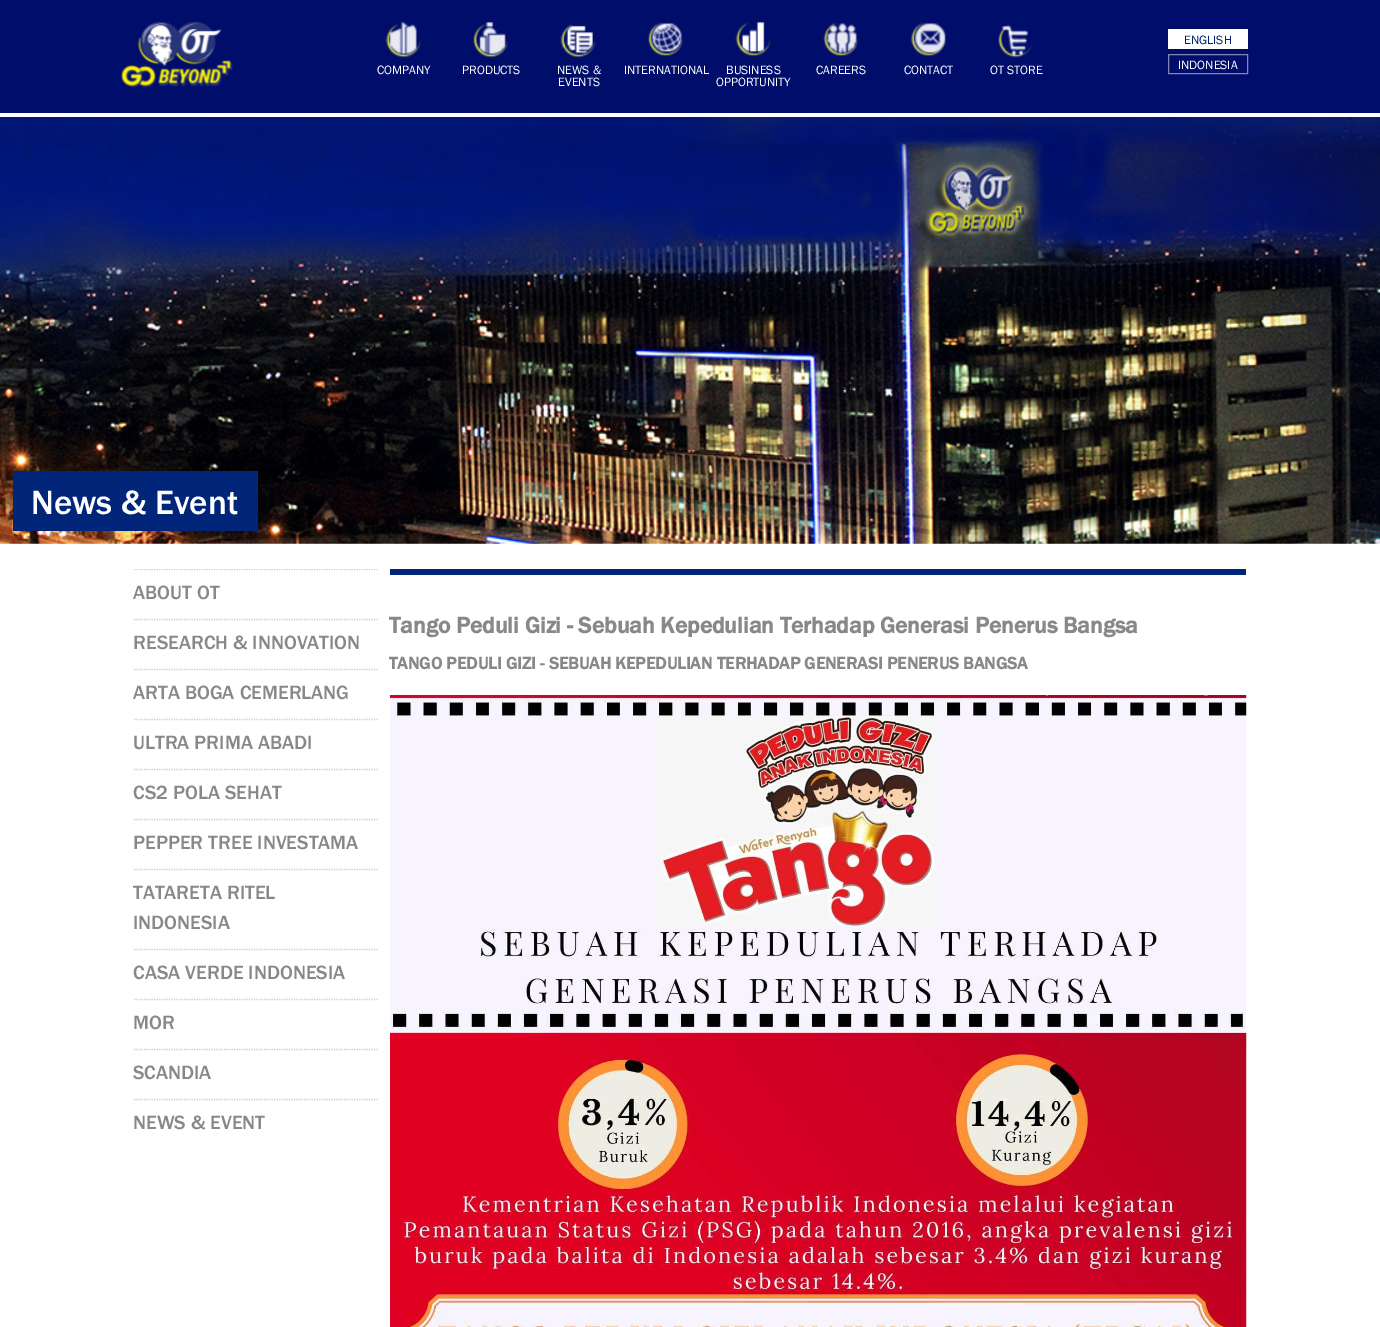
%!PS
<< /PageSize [1380 1327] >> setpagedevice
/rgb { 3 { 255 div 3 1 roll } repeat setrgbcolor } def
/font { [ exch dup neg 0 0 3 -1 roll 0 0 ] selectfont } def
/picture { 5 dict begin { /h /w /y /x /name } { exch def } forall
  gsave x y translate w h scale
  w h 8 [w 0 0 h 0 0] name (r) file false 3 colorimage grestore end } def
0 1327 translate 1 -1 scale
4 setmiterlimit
255 255 255 rgb
0 0 1380 1327 rectfill
0 13 107 rgb
0 0 1380 113 rectfill
(img/1.rgb) 121 21 112 67 picture
255 255 255 rgb
1168 29 80 20 rectfill
128 134 181 rgb
1168.5 54.5 79 19 rectstroke
(img/2.rgb) 385 22 36 36 picture
(img/3.rgb) 473 22 35 36 picture
(img/4.rgb) 560 24 36 34 picture
(img/5.rgb) 648 22 35 35 picture
(img/6.rgb) 735 22 36 34 picture
(img/7.rgb) 823 22 36 34 picture
(img/8.rgb) 910 22 36 34 picture
(img/9.rgb) 998 24 35 34 picture
(img/10.rgb) 0 117 1380 427 picture
0 37 121 rgb
13 471 245 60 rectfill
gsave
115 569 263 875 rectclip
204 204 204 rgb
1.2 setlinewidth
[1.25 1.25] 0 setdash
134 569.5 moveto 377.5 569.5 lineto stroke
grestore
204 204 204 rgb
1.2 setlinewidth
[1.25 1.25] 0 setdash
134 619.5 moveto 377.5 619.5 lineto stroke
134 669.5 moveto 377.5 669.5 lineto stroke
134 719.5 moveto 377.5 719.5 lineto stroke
134 769.5 moveto 377.5 769.5 lineto stroke
134 819.5 moveto 377.5 819.5 lineto stroke
134 869.5 moveto 377.5 869.5 lineto stroke
134 949.5 moveto 377.5 949.5 lineto stroke
134 999.5 moveto 377.5 999.5 lineto stroke
134 1049.5 moveto 377.5 1049.5 lineto stroke
134 1099.5 moveto 377.5 1099.5 lineto stroke
0 37 121 rgb
390 569 856 6 rectfill
(img/11.rgb) 390 695 857 632 picture
/FranklinGothic-Regular 12.5 font
0 31 110 rgb
1184 44 moveto (ENGLISH) show
255 255 255 rgb
[
  [(INDONESIA) 1178 69]
  [(COMPANY) 377 74]
  [(PRODUCTS) 462 74]
  [(NEWS &) 557 74]
  [(EVENTS) 558 86]
  [(INTERNATIONAL) 624 74]
  [(BUSINESS) 726 74]
  [(OPPORTUNITY) 716 86]
  [(CAREERS) 816 74]
  [(CONTACT) 904 74]
  [(OT STORE) 990 74]
] { aload pop moveto show } forall
/FranklinGothic-Medium 35 font
31 514 moveto (News & Event) show
/FranklinGothic-Medium 20 font
136 136 136 rgb
[
  [(ABOUT OT) 133 599]
  [(RESEARCH & INNOVATION) 133 649]
  [(ARTA BOGA CEMERLANG) 133 699]
  [(ULTRA PRIMA ABADI) 133 749]
  [(CS2 POLA SEHAT) 133 799]
  [(PEPPER TREE INVESTAMA) 133 849]
  [(TATARETA RITEL) 133 899]
  [(INDONESIA) 133 929]
  [(CASA VERDE INDONESIA) 133 979]
  [(MOR) 133 1029]
  [(SCANDIA) 133 1079]
  [(NEWS & EVENT) 133 1129]
] { aload pop moveto show } forall
/FranklinGothic-Bold 23.4 font
389 633 moveto (Tango Peduli Gizi - Sebuah Kepedulian Terhadap Generasi Penerus Bangsa) show
/FranklinGothic-Bold 17.5 font
389 669 moveto (TANGO PEDULI GIZI - SEBUAH KEPEDULIAN TERHADAP GENERASI PENERUS BANGSA) show
showpage
